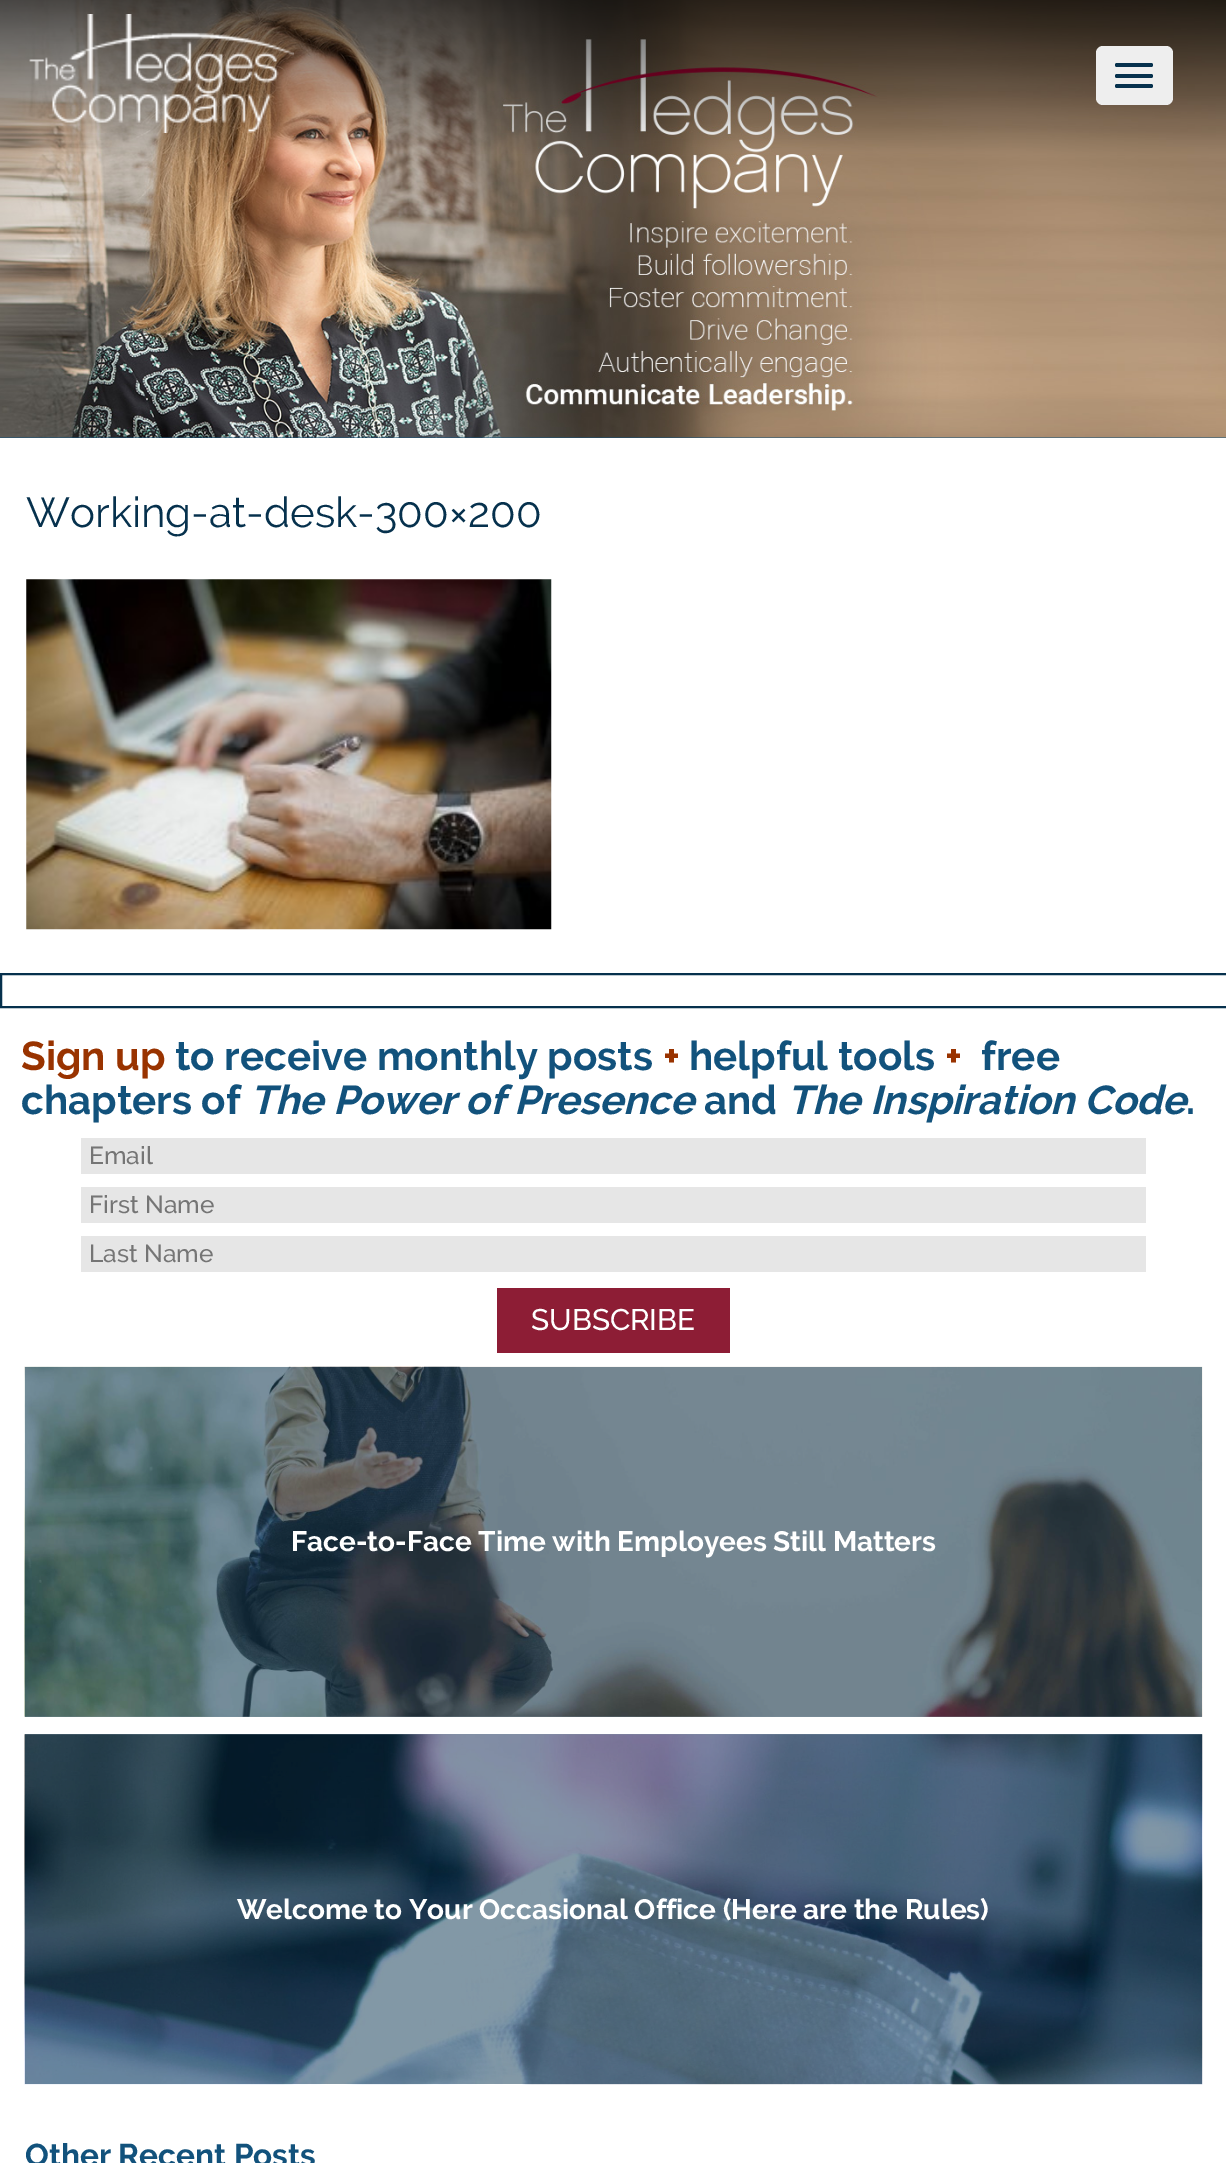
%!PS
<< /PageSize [1226 2163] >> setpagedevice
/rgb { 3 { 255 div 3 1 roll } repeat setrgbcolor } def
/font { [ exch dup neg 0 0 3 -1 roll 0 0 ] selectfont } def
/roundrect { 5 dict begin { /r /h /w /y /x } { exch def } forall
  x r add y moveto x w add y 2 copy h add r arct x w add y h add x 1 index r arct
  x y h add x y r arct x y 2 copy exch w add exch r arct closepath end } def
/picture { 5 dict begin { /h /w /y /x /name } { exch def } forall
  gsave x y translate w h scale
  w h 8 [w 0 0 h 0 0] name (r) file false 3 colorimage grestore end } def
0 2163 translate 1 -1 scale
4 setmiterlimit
18 82 124 rgb
0 0 1226 2163 rectfill
(img/1.rgb) 0 0 1226 438 picture
(img/2.rgb) 29 14 265 119 picture
238 238 238 rgb
1096 46 77 59 7 roundrect fill
6 49 77 rgb
1115 63 38 4 2 roundrect fill
1115 74 38 4 2 roundrect fill
1115 84 38 4 2 roundrect fill
255 255 255 rgb
0 438 1226 1725 rectfill
(img/3.rgb) 26 579 526 351 picture
6 49 77 rgb
2 setlinewidth
1 974 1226 33 rectstroke
[
  [81 1138 1065 36 230 230 230]
  [81 1187 1065 36 230 230 230]
  [81 1236 1065 36 230 230 230]
  [497 1288 233 65 141 29 53]
] { aload pop rgb rectfill } forall
(img/4.rgb) 24 1366 1179 351 picture
(img/5.rgb) 24 1734 1179 351 picture
/Raleway-Regular 42 font
6 49 77 rgb
26 527 moveto (Working-at-desk-300×200) show
/Raleway-Bold 40.25 font
153 51 0 rgb
21 1070 moveto (Sign up) show
18 82 124 rgb
175 1070 moveto (to receive monthly posts) show
153 51 0 rgb
663 1070 moveto (+) show
18 82 124 rgb
689 1070 moveto (helpful tools) show
153 51 0 rgb
945 1070 moveto (+) show
18 82 124 rgb
981 1070 moveto (free) show
21 1114 moveto (chapters of) show
/Raleway-BoldItalic 40.25 font
250 1114 moveto (The Power of Presence) show
/Raleway-Bold 40.25 font
704 1114 moveto (and) show
/Raleway-BoldItalic 40.25 font
787 1114 moveto (The Inspiration Code) show
/Raleway-Bold 40.25 font
1186 1114 moveto (.) show
/Raleway-Medium 24.5 font
117 117 117 rgb
[
  [(Email) 89 1164]
  [(First Name) 89 1213]
  [(Last Name) 89 1262]
] { aload pop moveto show } forall
/Raleway-Medium 29.75 font
255 255 255 rgb
531 1330 moveto (SUBSCRIBE) show
/Raleway-Bold 28 font
291 1551 moveto (Face-to-Face Time with Employees Still Matters) show
237 1919 moveto (Welcome to Your Occasional Office \(Here are the Rules\)) show
/Raleway-Bold 31.5 font
18 82 124 rgb
25 2166 moveto (Other Recent Posts) show
showpage
